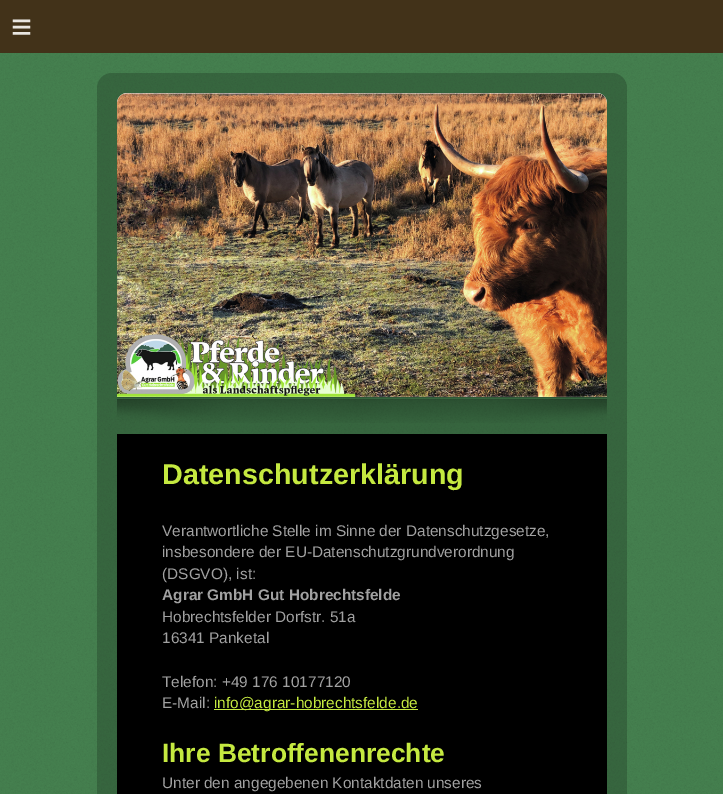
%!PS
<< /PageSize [723 794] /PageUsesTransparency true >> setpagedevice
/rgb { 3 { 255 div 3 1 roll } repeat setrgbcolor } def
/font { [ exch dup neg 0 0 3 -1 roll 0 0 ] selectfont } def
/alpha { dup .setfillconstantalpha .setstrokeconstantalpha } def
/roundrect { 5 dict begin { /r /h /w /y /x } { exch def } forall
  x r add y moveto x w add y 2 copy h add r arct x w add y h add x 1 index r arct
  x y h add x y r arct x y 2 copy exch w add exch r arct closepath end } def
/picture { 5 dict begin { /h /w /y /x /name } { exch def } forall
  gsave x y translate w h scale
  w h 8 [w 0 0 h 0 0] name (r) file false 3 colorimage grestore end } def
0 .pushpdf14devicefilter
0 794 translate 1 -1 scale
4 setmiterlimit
69 128 79 rgb
0 0 723 794 rectfill
(img/1.rgb) 0 53 723 741 picture
66 50 25 rgb
0 0 723 53 rectfill
0.2 alpha
0 0 0 rgb
97 73 530 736 15 roundrect fill
1 alpha
255 255 255 rgb
127 93 moveto 597 93 lineto 602.5 93 607 97.5 607 103 curveto 607 397 lineto 117 397 lineto 117 103 lineto 117 97.5 121.5 93 127 93 curveto closepath fill
(img/2.rgb) 117 93 490 304 picture
(img/3.rgb) 117 397 490 26 picture
0 0 0 rgb
117 434 490 360 rectfill
197 233 64 rgb
214 709 204 1 rectfill
/LiberationSans-Regular 36 font
233 230 225 rgb
11 39 moveto 10 0 (≡) ashow
/LiberationSans-Bold 28.75 font
197 233 64 rgb
162 484 moveto (Datenschutzerklärung) show
/LiberationSans-Regular 15.4 font
161 161 161 rgb
[
  [(Verantwortliche Stelle im Sinne der Datenschutzgesetze,) 162 536]
  [(insbesondere der EU-Datenschutzgrundverordnung) 162 557]
  [(\(DSGVO\), ist:) 162 579]
] { aload pop moveto show } forall
/LiberationSans-Bold 15.4 font
162 600 moveto (Agrar GmbH Gut Hobrechtsfelde) show
/LiberationSans-Regular 15.4 font
[
  [(Hobrechtsfelder Dorfstr. 51a) 162 622]
  [(16341 Panketal) 162 643]
  [(Telefon: +49 176 10177120) 162 687]
  [(E-Mail:) 162 708]
] { aload pop moveto show } forall
197 233 64 rgb
214 708 moveto (info@agrar-hobrechtsfelde.de) show
/LiberationSans-Bold 26.4 font
162 762 moveto (Ihre Betroffenenrechte) show
/LiberationSans-Regular 15.4 font
161 161 161 rgb
162 788 moveto (Unter den angegebenen Kontaktdaten unseres) show
.poppdf14devicefilter showpage
